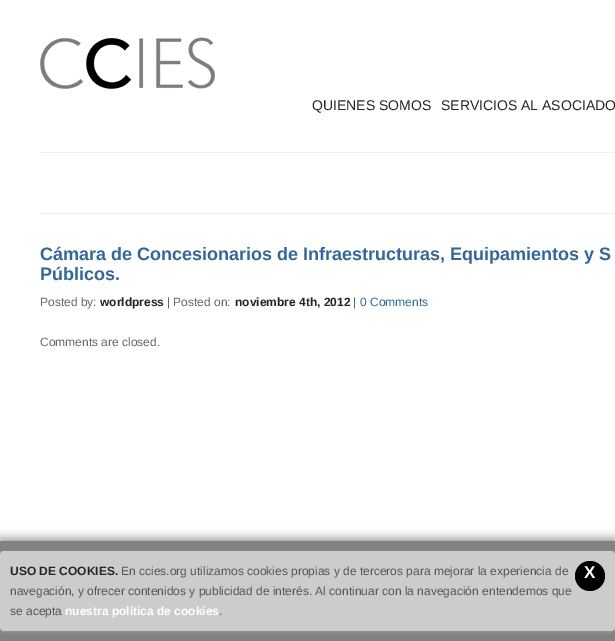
%!PS
<< /PageSize [615 641] /PageUsesTransparency true >> setpagedevice
/rgb { 3 { 255 div 3 1 roll } repeat setrgbcolor } def
/font { [ exch dup neg 0 0 3 -1 roll 0 0 ] selectfont } def
/alpha { dup .setfillconstantalpha .setstrokeconstantalpha } def
/circle { newpath 0 360 arc closepath } def
/roundrect { 5 dict begin { /r /h /w /y /x } { exch def } forall
  x r add y moveto x w add y 2 copy h add r arct x w add y h add x 1 index r arct
  x y h add x y r arct x y 2 copy exch w add exch r arct closepath end } def
/shadow { 12 dict begin { /a /b /q /h /w /y /x } { exch def } forall gsave /was 0 def
  9 -2 -9 { dup b mul 4 div /e exch def 1 sub .425 mul 2.718 exch exp 1 add a .99 .min exch div /now exch def
    1 1 now sub 1 was sub div sub alpha /was now def
    w h .min e 2 mul add 0 gt { x e sub y e sub w e 2 mul add h e 2 mul add
      q e add b .6 mul add w h .min 2 div e add .min 0 .max roundrect fill } if } for grestore end } def
/picture { 5 dict begin { /h /w /y /x /name } { exch def } forall
  gsave x y translate w h scale
  w h 8 [w 0 0 h 0 0] name (r) file false 3 colorimage grestore end } def
0 .pushpdf14devicefilter
0 641 translate 1 -1 scale
4 setmiterlimit
255 255 255 rgb
0 0 615 641 rectfill
(img/1.rgb) 40 37 175 52 picture
239 239 239 rgb
40 152 575 1 rectfill
40 213 575 1 rectfill
153 153 153 rgb
0 538 615 100 0 5 1 shadow
130 130 130 rgb
0 541 615 100 rectfill
153 153 153 rgb
0 552 615 80 4 1.5 1 shadow
204 204 204 rgb
0 551 615 80 4 roundrect fill
0 0 0 rgb
590 576 15 circle fill
/LiberationSans-Regular 14 font
37 37 37 rgb
312 110 moveto (QUIENES SOMOS) show
441 110 moveto (SERVICIOS AL ASOCIADO) show
/LiberationSans-Bold 18 font
52 102 153 rgb
40 260 moveto (Cámara de Concesionarios de Infraestructuras, Equipamientos y S) show
40 280 moveto (Públicos.) show
/LiberationSans-Regular 12 font
102 102 102 rgb
40 306 moveto (Posted by:) show
/LiberationSans-Bold 12 font
37 37 37 rgb
100 306 moveto (worldpress) show
/LiberationSans-Regular 12 font
102 102 102 rgb
167 306 moveto (| Posted on:) show
/LiberationSans-Bold 12 font
37 37 37 rgb
235 306 moveto (noviembre 4th, 2012) show
/LiberationSans-Regular 12 font
102 102 102 rgb
353 306 moveto (|) show
52 102 153 rgb
360 306 moveto (0 Comments) show
102 102 102 rgb
40 346 moveto (Comments are closed.) show
/LiberationSans-Bold 12 font
37 37 37 rgb
10 575 moveto (USO DE COOKIES.) show
/LiberationSans-Regular 12 font
85 85 85 rgb
[
  [(En ccies.org utilizamos cookies propias y de terceros para mejorar la experiencia de) 121 575]
  [(navegación, y ofrecer contenidos y publicidad de interés. Al continuar con la navegación entendemos que) 10 595]
  [(se acepta) 10 615]
] { aload pop moveto show } forall
/LiberationSans-Bold 12 font
255 255 255 rgb
65 615 moveto (nuestra política de cookies) show
/LiberationSans-Regular 12 font
85 85 85 rgb
219 615 moveto (.) show
/LiberationSans-Bold 17 font
255 255 255 rgb
584 578 moveto (X) show
.poppdf14devicefilter showpage
